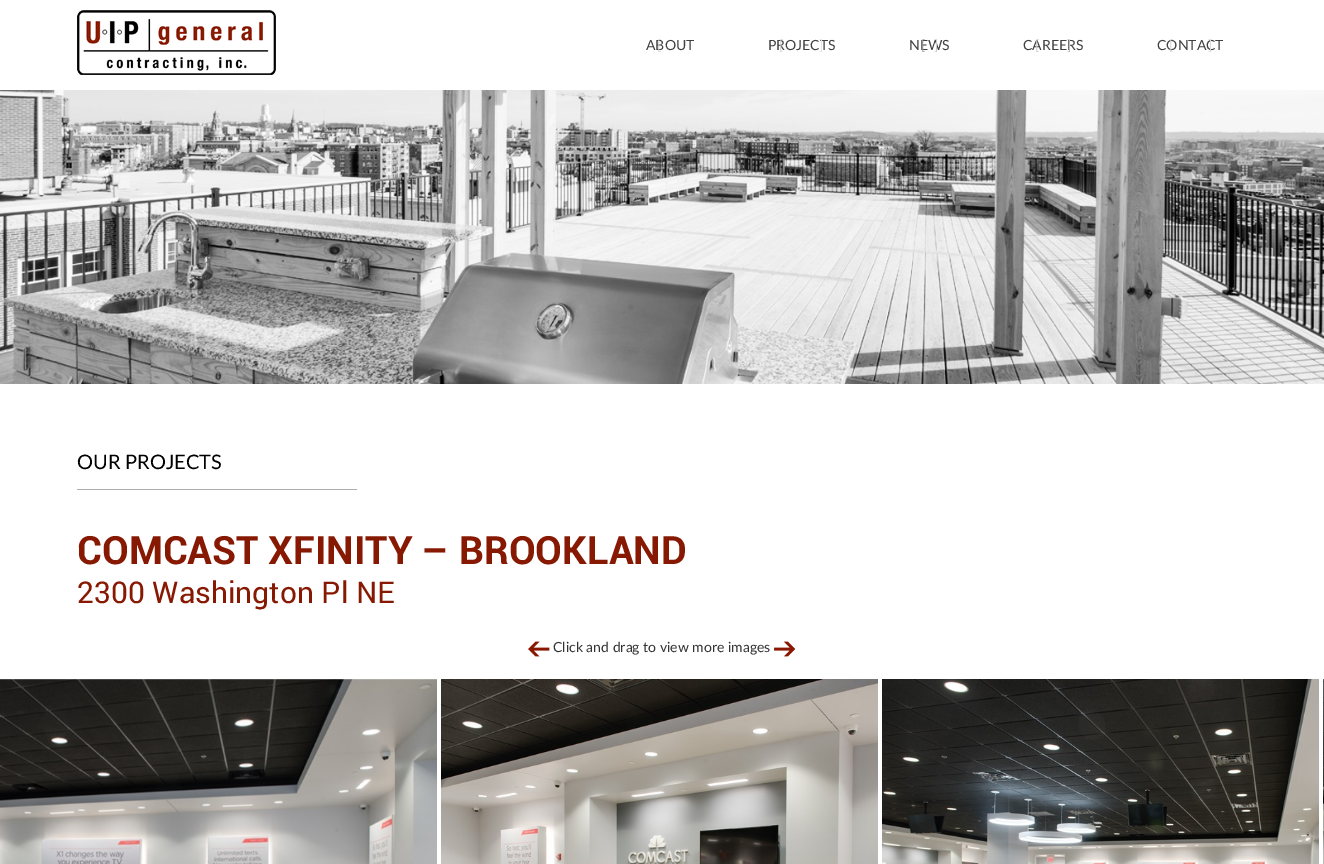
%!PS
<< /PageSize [1324 864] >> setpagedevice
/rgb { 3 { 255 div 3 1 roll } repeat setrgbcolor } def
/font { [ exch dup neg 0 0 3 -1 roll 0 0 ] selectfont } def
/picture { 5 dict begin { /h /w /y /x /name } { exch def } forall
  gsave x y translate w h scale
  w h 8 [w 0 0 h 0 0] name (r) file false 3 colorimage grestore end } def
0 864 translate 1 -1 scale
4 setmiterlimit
255 255 255 rgb
0 0 1324 864 rectfill
(img/1.rgb) 77 10 199 65 picture
(img/2.rgb) 0 90 1324 294 picture
172 172 172 rgb
77 489 280 1 rectfill
(img/3.rgb) 528 641 22 16 picture
(img/4.rgb) 774 641 22 16 picture
(img/5.rgb) 0 679 437 185 picture
(img/6.rgb) 441 679 437 185 picture
(img/7.rgb) 882 679 437 185 picture
(img/8.rgb) 1323 679 1 185 picture
/Lato-Regular 14 font
64 64 64 rgb
646 50 moveto (ABOUT) show
211 211 211 rgb
657 50 moveto ([) show
64 64 64 rgb
768 50 moveto (PROJECTS) show
211 211 211 rgb
779 50 moveto ([) show
228 228 228 rgb
819 50 moveto (]) show
64 64 64 rgb
909 50 moveto (NEWS) show
159 159 159 rgb
921 50 moveto ([) show
203 203 203 rgb
934 50 moveto (]) show
64 64 64 rgb
1023 50 moveto (CAREERS) show
203 203 203 rgb
1035 50 moveto ([) show
189 189 189 rgb
1067 50 moveto (]) show
64 64 64 rgb
1157 50 moveto (CONTACT) show
211 211 211 rgb
1169 50 moveto ([) show
218 218 218 rgb
1208 50 moveto (]) show
/Lato-Regular 20 font
0 0 0 rgb
77 469 moveto (OUR PROJECTS) show
/Roboto-Bold 39 font
135 24 2 rgb
77 564 moveto (COMCAST XFINITY – BROOKLAND) show
/Roboto-Regular 30 font
77 603 moveto (2300 Washington Pl NE) show
/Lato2-Regular 14 font
51 51 51 rgb
553 652 moveto (Click and drag to view more images) show
showpage
